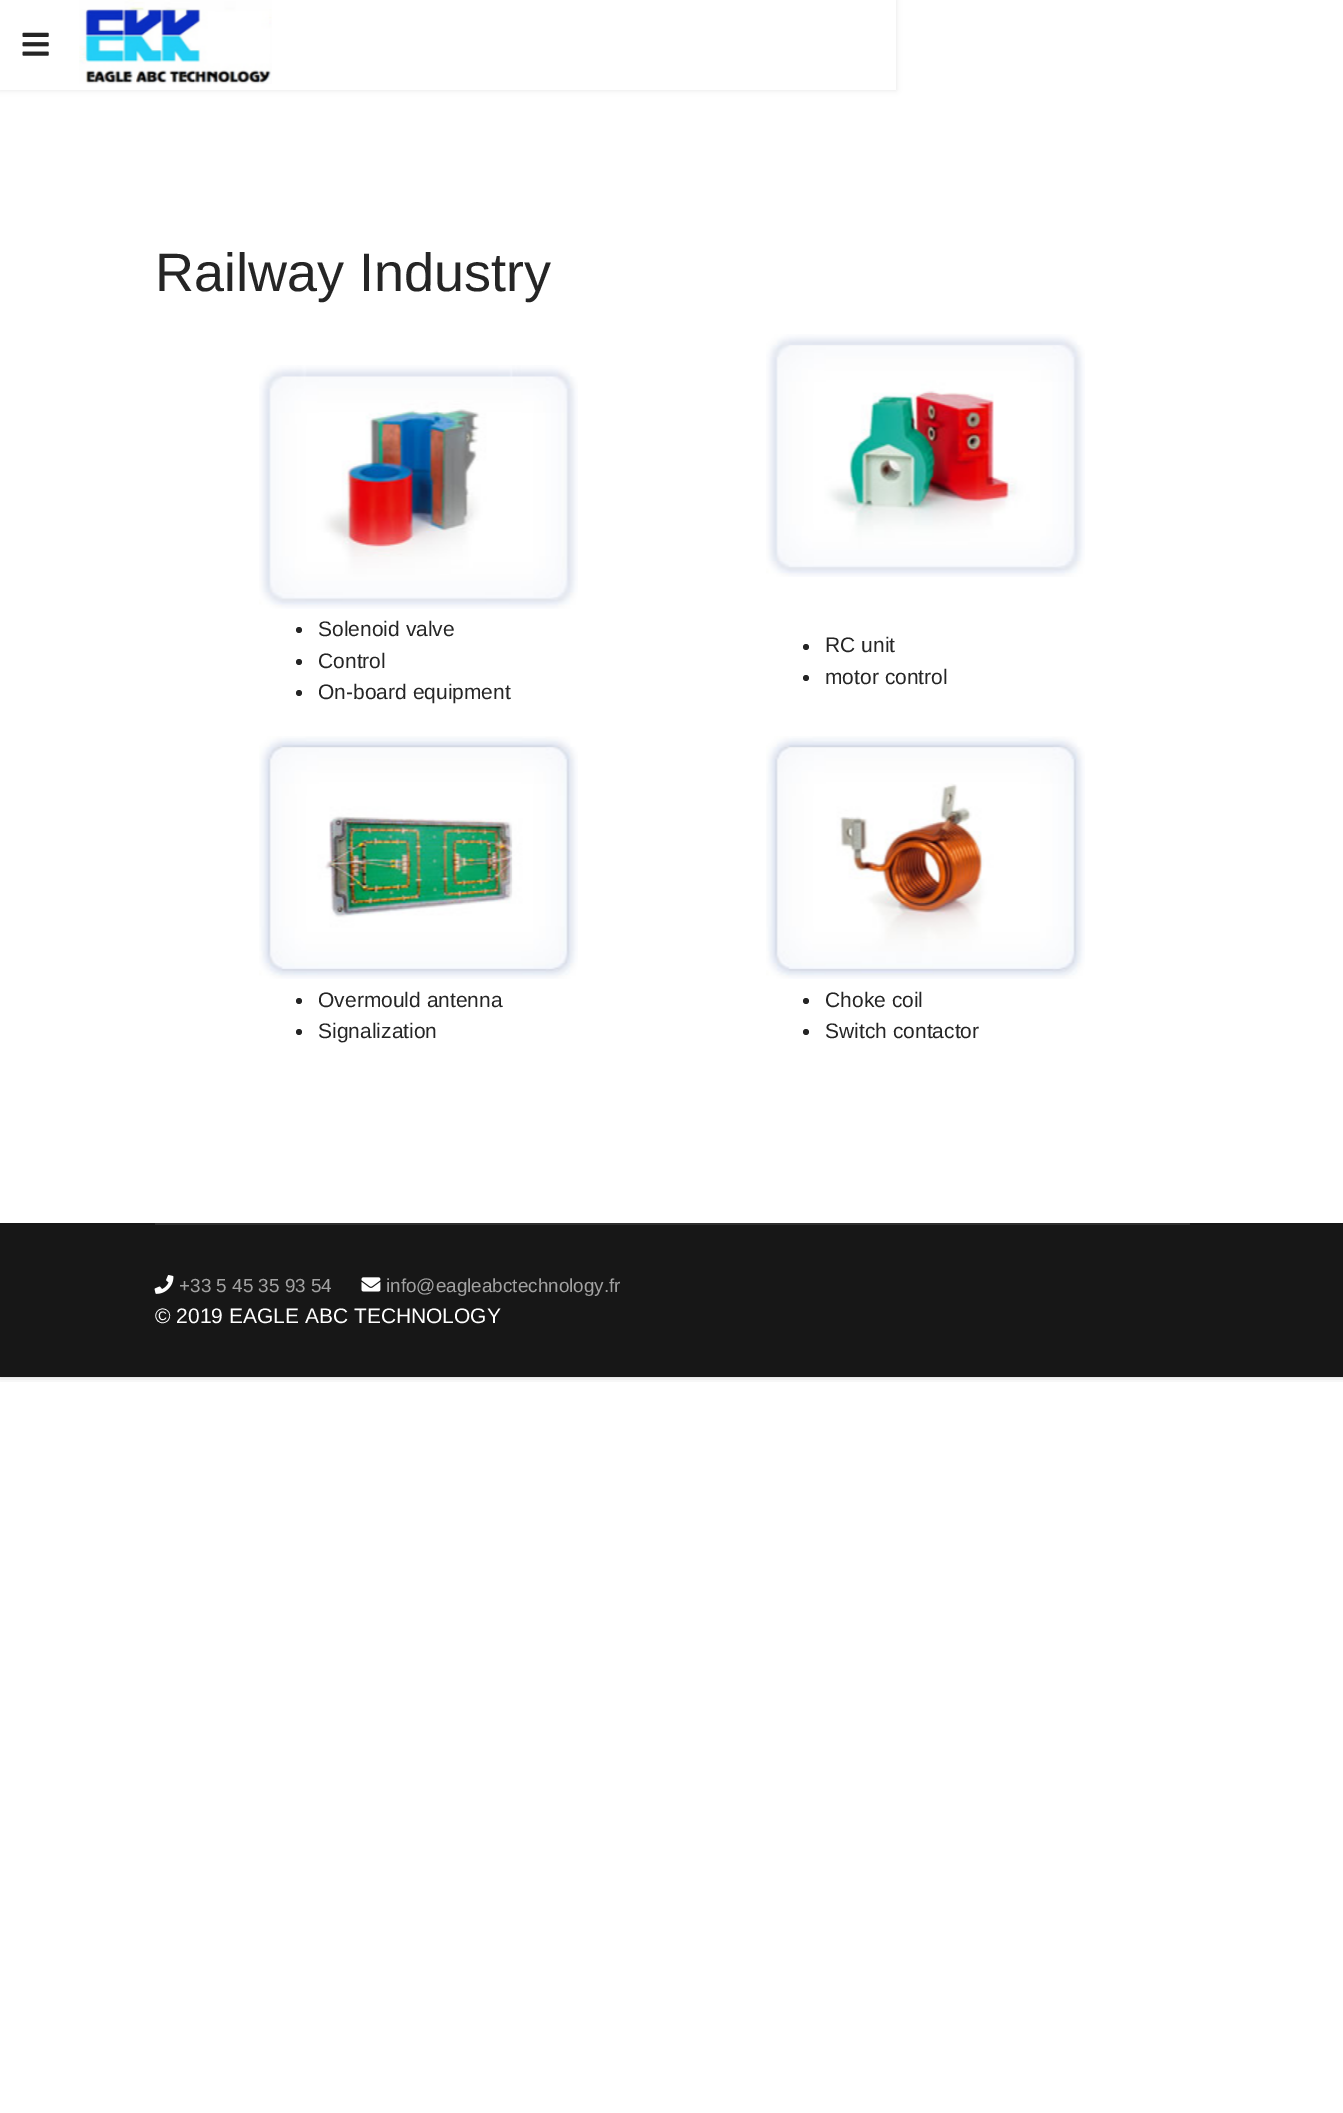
%!PS
<< /PageSize [1343 2113] /PageUsesTransparency true >> setpagedevice
/rgb { 3 { 255 div 3 1 roll } repeat setrgbcolor } def
/font { [ exch dup neg 0 0 3 -1 roll 0 0 ] selectfont } def
/alpha { dup .setfillconstantalpha .setstrokeconstantalpha } def
/circle { newpath 0 360 arc closepath } def
/roundrect { 5 dict begin { /r /h /w /y /x } { exch def } forall
  x r add y moveto x w add y 2 copy h add r arct x w add y h add x 1 index r arct
  x y h add x y r arct x y 2 copy exch w add exch r arct closepath end } def
/shadow { 12 dict begin { /a /b /q /h /w /y /x } { exch def } forall gsave /was 0 def
  9 -2 -9 { dup b mul 4 div /e exch def 1 sub .425 mul 2.718 exch exp 1 add a .99 .min exch div /now exch def
    1 1 now sub 1 was sub div sub alpha /was now def
    w h .min e 2 mul add 0 gt { x e sub y e sub w e 2 mul add h e 2 mul add
      q e add b .6 mul add w h .min 2 div e add .min 0 .max roundrect fill } if } for grestore end } def
/picture { 5 dict begin { /h /w /y /x /name } { exch def } forall
  gsave x y translate w h scale
  w h 8 [w 0 0 h 0 0] name (r) file false 3 colorimage grestore end } def
0 .pushpdf14devicefilter
0 2113 translate 1 -1 scale
4 setmiterlimit
255 255 255 rgb
0 0 1343 2113 rectfill
gsave
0 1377 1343 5 rectclip
0 0 0 rgb
0 0 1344 1377 0 4 0.2 shadow
grestore
0 0 0 rgb
0 0 896 90 0 3 0.1 shadow
255 255 255 rgb
0 0 896 90 rectfill
(img/1.rgb) 22 32 27 24 picture
(img/2.rgb) 79 0 193 84 picture
(img/3.rgb) 259 365 319 244 picture
(img/4.rgb) 766 334 319 243 picture
37 37 37 rgb
299 630 3 circle fill
299 662 3 circle fill
299 693 3 circle fill
806 647 3 circle fill
806 678 3 circle fill
(img/5.rgb) 259 736 319 243 picture
(img/6.rgb) 766 736 319 243 picture
299 1001 3 circle fill
299 1032 3 circle fill
806 1001 3 circle fill
806 1032 3 circle fill
23 23 23 rgb
0 1223 1343 154 rectfill
46 46 46 rgb
155 1223 1035 2 rectfill
(img/7.rgb) 154 1275 20 19 picture
(img/8.rgb) 361 1277 20 15 picture
/LiberationSans-Regular 54 font
37 37 37 rgb
155 291 moveto (Railway Industry) show
/LiberationSans-Regular 21 font
[
  [(Solenoid valve) 318 636]
  [(Control) 318 668]
  [(On-board equipment) 318 699]
  [(RC unit) 825 652]
  [(motor control) 825 684]
  [(Overmould antenna) 318 1007]
  [(Signalization) 318 1038]
  [(Choke coil) 825 1007]
  [(Switch contactor) 825 1038]
] { aload pop moveto show } forall
/LiberationSans-Regular 18.9 font
162 162 162 rgb
179 1292 moveto (+33 5 45 35 93 54) show
386 1292 moveto (info@eagleabctechnology.fr) show
/LiberationSans-Regular 21 font
255 255 255 rgb
155 1323 moveto (© 2019 EAGLE ABC TECHNOLOGY) show
.poppdf14devicefilter showpage
